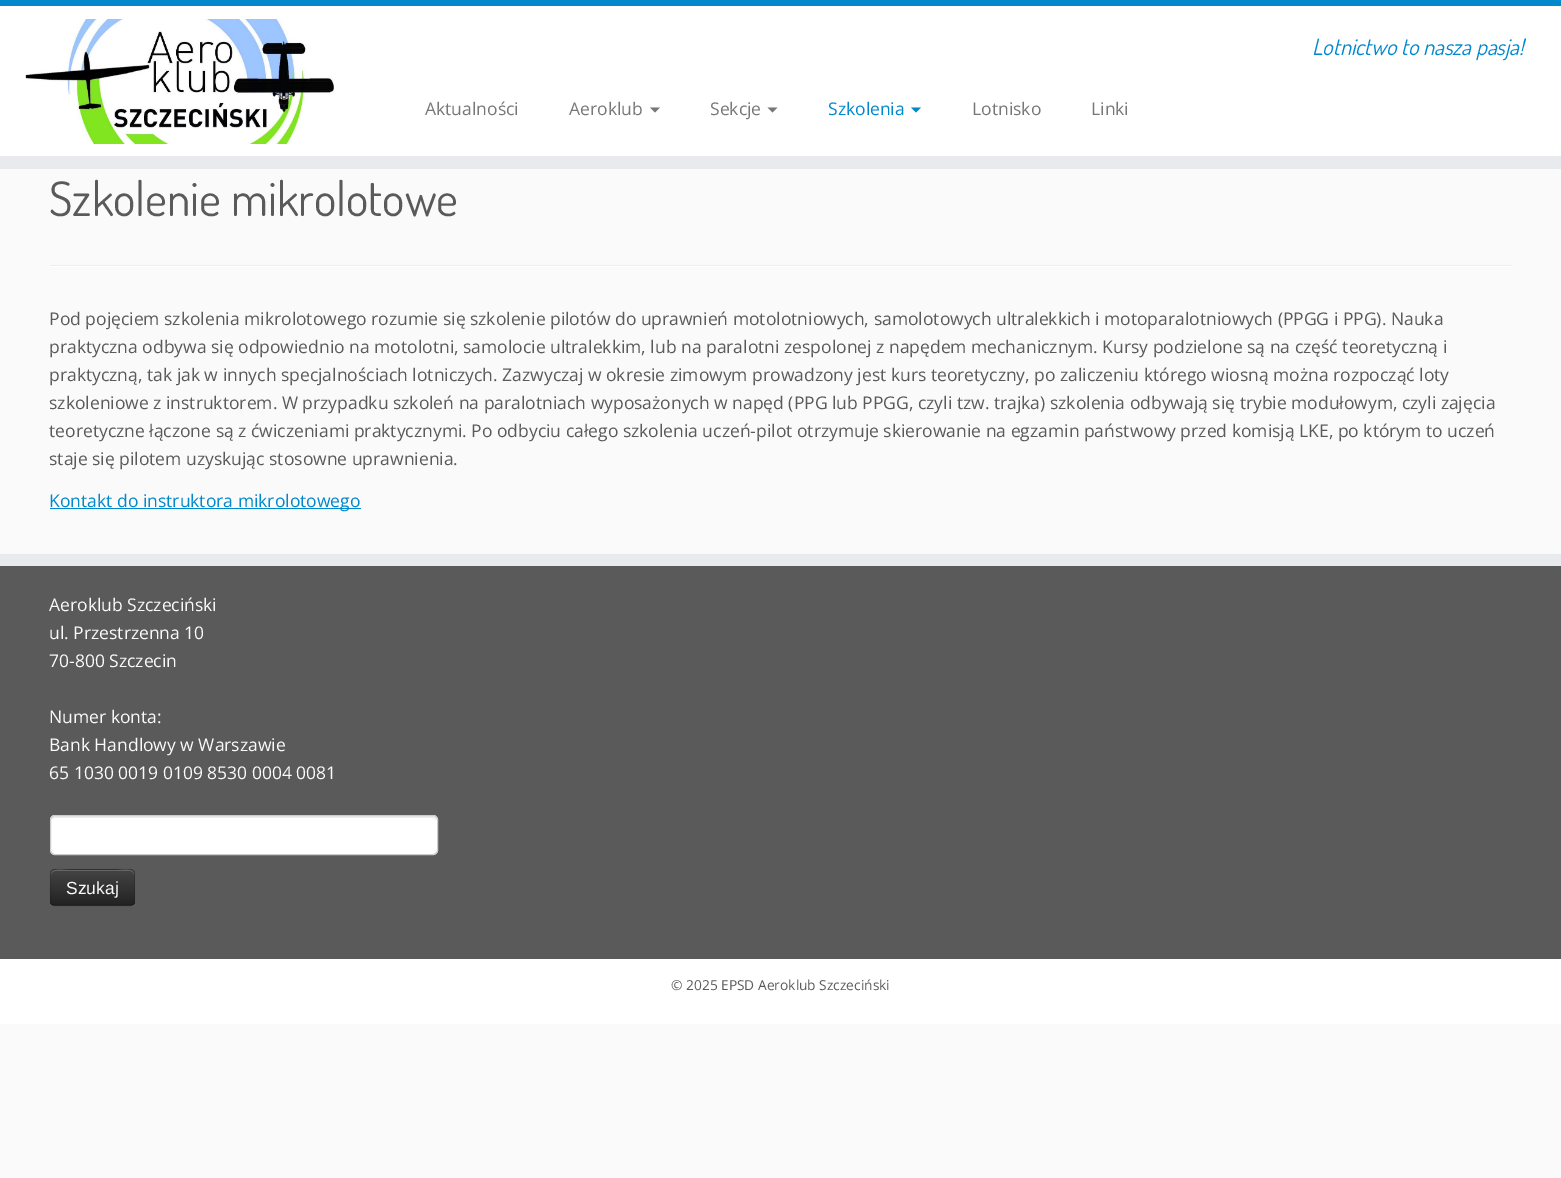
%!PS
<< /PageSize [1561 1178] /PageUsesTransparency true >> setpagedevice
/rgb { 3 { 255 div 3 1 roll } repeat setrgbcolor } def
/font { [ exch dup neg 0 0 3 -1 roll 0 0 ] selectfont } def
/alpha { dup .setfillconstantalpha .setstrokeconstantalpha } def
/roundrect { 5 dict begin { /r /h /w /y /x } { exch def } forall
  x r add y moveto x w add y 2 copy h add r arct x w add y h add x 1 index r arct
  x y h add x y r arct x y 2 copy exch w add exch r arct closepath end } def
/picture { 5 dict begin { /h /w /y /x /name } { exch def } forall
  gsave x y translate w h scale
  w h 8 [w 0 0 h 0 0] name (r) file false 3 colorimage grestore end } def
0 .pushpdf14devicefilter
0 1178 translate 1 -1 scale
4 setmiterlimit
250 250 250 rgb
0 0 1561 1178 rectfill
[
  [0 6 1561 150 255 255 255]
  [0 0 1561 6 0 136 204]
  [0 156 1561 13 233 234 238]
] { aload pop rgb rectfill } forall
(img/1.rgb) 25 19 309 125 picture
119 119 119 rgb
650 107.5 moveto 660 107.5 lineto 655 112.5 lineto closepath fill
767.5 107.5 moveto 777.5 107.5 lineto 772.5 112.5 lineto closepath fill
0 136 204 rgb
911 107.5 moveto 921 107.5 lineto 916 112.5 lineto closepath fill
[
  [50 265 1463 1 238 238 238]
  [50 266 1463 1 255 255 255]
  [50 508 311 1 0 136 204]
  [0 566 1561 393 90 90 90]
  [0 554 1561 12 233 234 238]
] { aload pop rgb rectfill } forall
255 255 255 rgb
50 815 388 40 5 roundrect fill
236 236 236 rgb
55 818 moveto 432 818 lineto 435 818 436 819 436 821 curveto 436 818 435 816 432 816 curveto 55 816 lineto 52 816 51 818 51 821 curveto 51 819 53 818 55 818 curveto closepath fill
204 204 204 rgb
50.5 815.5 387 39 4.5 roundrect stroke
54 54 54 rgb
50 869 85 37 5 roundrect fill
gsave
50 869 85 37 5 roundrect clip newpath
gsave 50 870 moveto 135 870 lineto 135 905 lineto 50 905 lineto closepath clip newpath
<< /ShadingType 2 /ColorSpace /DeviceRGB /Coords [93 870 93 905] /Extend [true true] /Function << /FunctionType 2 /Domain [0 1] /C0 [0.267 0.267 0.267] /C1 [0.133 0.133 0.133] /N 1 >> >> shfill grestore
grestore
0.2 alpha
255 255 255 rgb
55 871 moveto 130 871 lineto 132 871 134 873 134 875 curveto 134 867 122 870 118 870 curveto 68 870 lineto 63 870 51 867 51 875 curveto 51 873 53 871 55 871 curveto closepath fill
0.25 alpha
0 0 0 rgb
1.2 setlinewidth
133 904.5 moveto 130.5 905.5 lineto 54.5 905.5 lineto 52 904.5 lineto stroke
0.1 alpha
52 904.5 moveto 50 902.5 50.5 899 50.5 896.5 curveto 50.5 887.5 lineto 50.5 867.5 47.5 869.5 67.5 869.5 curveto 117.5 869.5 lineto 137.5 869.5 134.5 867.5 134.5 887.5 curveto 134.5 896.5 lineto 134.5 899 135 902.5 133 904.5 curveto stroke
1 alpha
255 255 255 rgb
0 959 1561 65 rectfill
/Dosis-Italic 22.5 font
0 136 204 rgb
1312 55 moveto (Lotnictwo to nasza pasja!) show
/OpenSans-Regular 17.5 font
119 119 119 rgb
[
  [(Aktualności) 425 115]
  [(Aeroklub) 569 115]
  [(Sekcje) 710 115]
] { aload pop moveto show } forall
0 136 204 rgb
828 115 moveto (Szkolenia) show
119 119 119 rgb
972 115 moveto (Lotnisko) show
1091 115 moveto (Linki) show
/Dosis-Regular 47.5 font
90 90 90 rgb
49 216 moveto (Szkolenie mikrolotowe) show
/OpenSans-Regular 17.5 font
[
  [(Pod pojęciem szkolenia mikrolotowego rozumie się szkolenie pilotów do uprawnień motolotniowych, samolotowych ultralekkich i motoparalotniowych \(PPGG i PPG\). Nauka) 49 325]
  [(praktyczna odbywa się odpowiednio na motolotni, samolocie ultralekkim, lub na paralotni zespolonej z napędem mechanicznym. Kursy podzielone są na część teoretyczną i) 49 353]
  [(praktyczną, tak jak w innych specjalnościach lotniczych. Zazwyczaj w okresie zimowym prowadzony jest kurs teoretyczny, po zaliczeniu którego wiosną można rozpocząć loty) 49 381]
  [(szkoleniowe z instruktorem. W przypadku szkoleń na paralotniach wyposażonych w napęd \(PPG lub PPGG, czyli tzw. trajka\) szkolenia odbywają się trybie modułowym, czyli zajęcia) 49 409]
  [(teoretyczne łączone są z ćwiczeniami praktycznymi. Po odbyciu całego szkolenia uczeń-pilot otrzymuje skierowanie na egzamin państwowy przed komisją LKE, po którym to uczeń) 49 437]
  [(staje się pilotem uzyskując stosowne uprawnienia.) 49 465]
] { aload pop moveto show } forall
0 136 204 rgb
49 507 moveto (Kontakt do instruktora mikrolotowego) show
250 250 250 rgb
[
  [(Aeroklub Szczeciński) 49 611]
  [(ul. Przestrzenna 10) 49 639]
  [(70-800 Szczecin) 49 667]
  [(Numer konta:) 49 723]
  [(Bank Handlowy w Warszawie) 49 751]
  [(65 1030 0019 0109 8530 0004 0081) 49 779]
] { aload pop moveto show } forall
/LiberationSans-Regular 17.5 font
66 894 moveto (Szukaj) show
/OpenSans-Regular 13.75 font
90 90 90 rgb
671 990 moveto (© 2025 EPSD Aeroklub Szczeciński) show
.poppdf14devicefilter showpage
